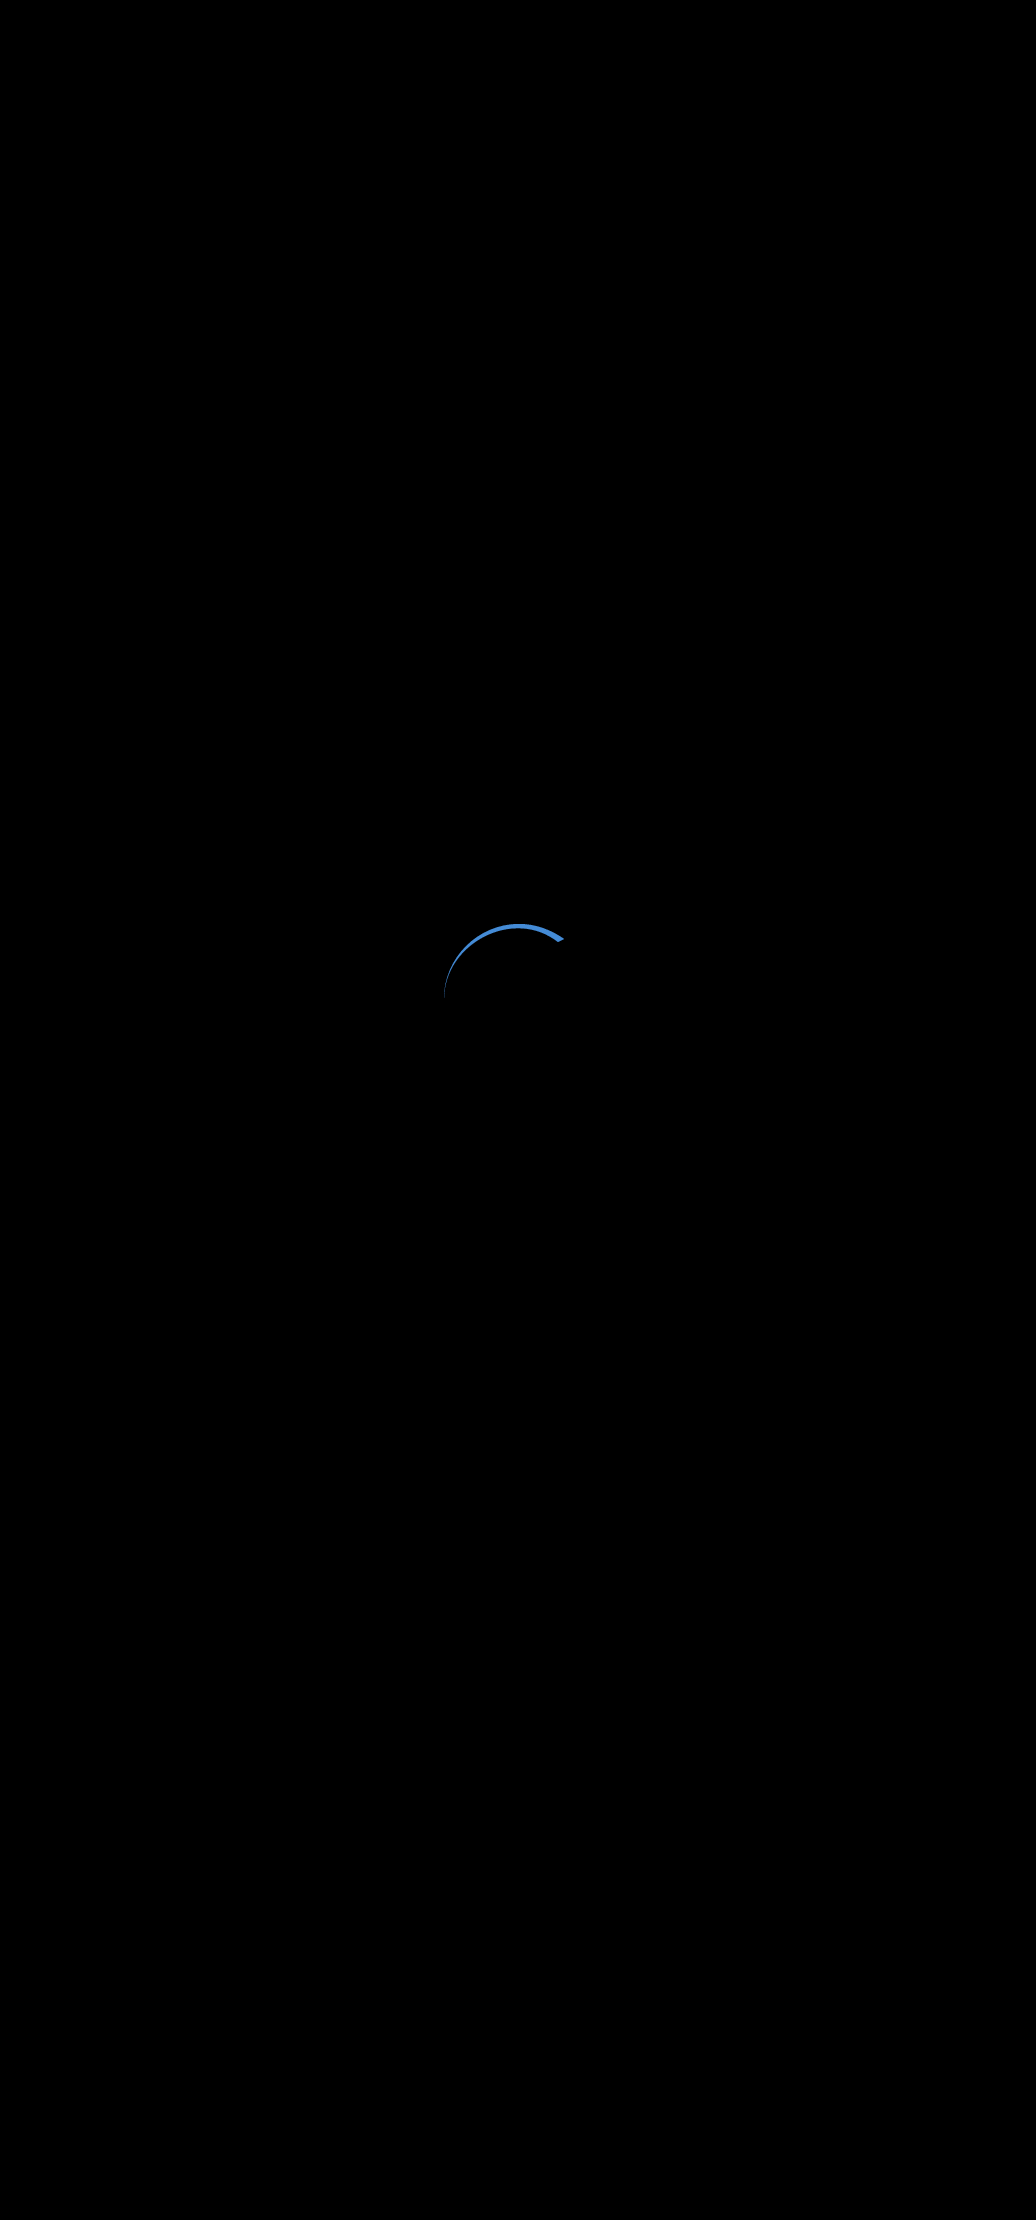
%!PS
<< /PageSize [1036 2220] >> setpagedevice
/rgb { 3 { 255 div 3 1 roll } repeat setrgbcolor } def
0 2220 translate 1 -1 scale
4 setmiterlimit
0 0 0 rgb
0 0 1036 2220 rectfill
68 139 214 rgb
519 924 moveto 478 924 444 958 444 999 curveto 444 943 514 907 558 942 curveto 564 939 lineto 551 930 536 924 519 924 curveto closepath fill
showpage
